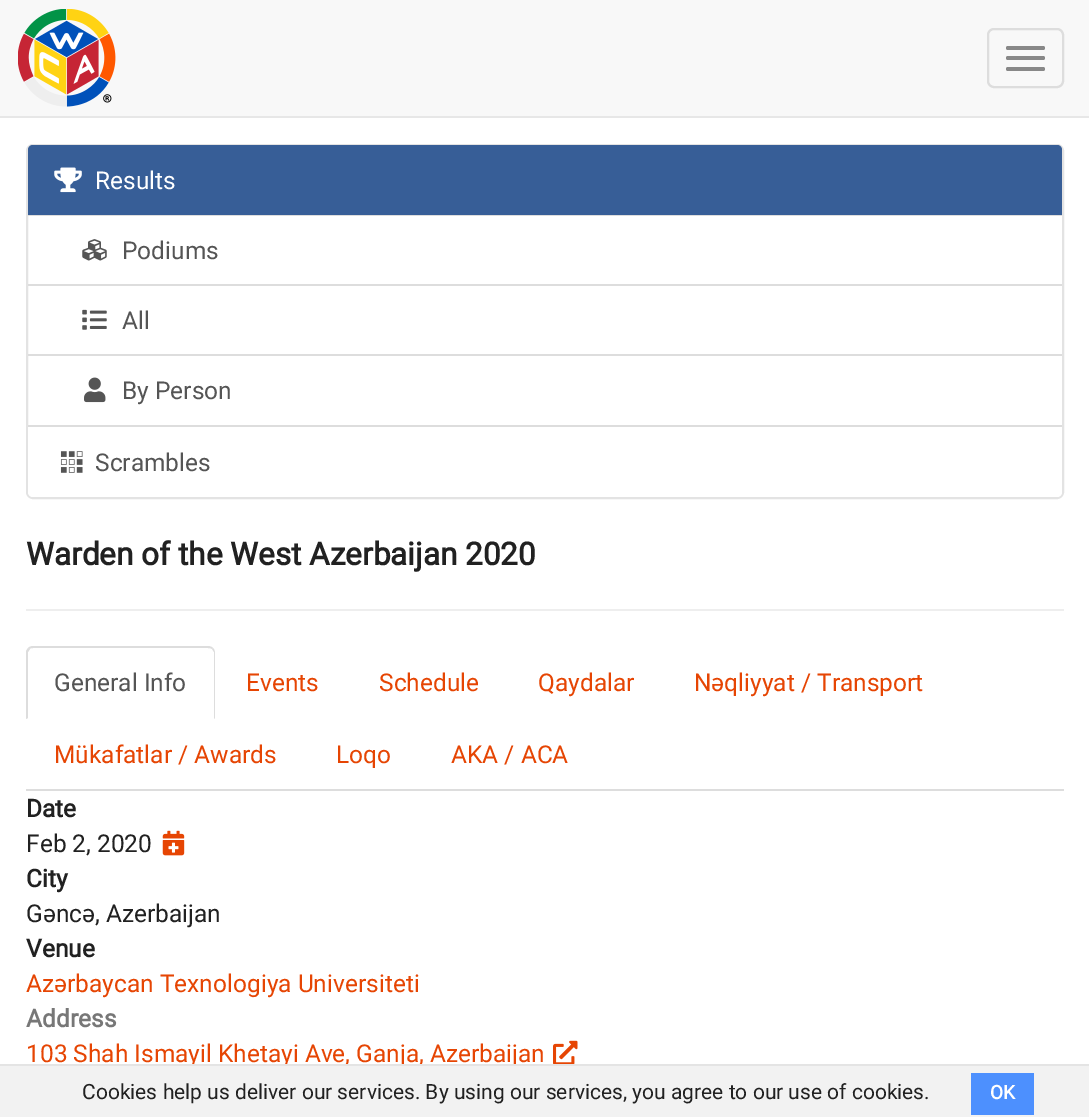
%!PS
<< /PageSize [1089 1117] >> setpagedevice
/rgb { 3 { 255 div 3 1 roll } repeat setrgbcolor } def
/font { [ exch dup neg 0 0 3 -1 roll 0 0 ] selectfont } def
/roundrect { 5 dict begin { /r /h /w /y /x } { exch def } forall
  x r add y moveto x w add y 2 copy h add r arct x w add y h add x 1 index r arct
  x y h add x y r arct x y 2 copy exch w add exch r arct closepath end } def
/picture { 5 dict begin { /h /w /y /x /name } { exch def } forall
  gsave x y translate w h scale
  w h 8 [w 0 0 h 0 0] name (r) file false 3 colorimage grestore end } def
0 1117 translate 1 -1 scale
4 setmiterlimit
255 255 255 rgb
0 0 1089 1117 rectfill
248 248 248 rgb
0 0 1089 116 rectfill
231 231 231 rgb
0 116 1089 2 rectfill
(img/1.rgb) 18 9 98 98 picture
221 221 221 rgb
2 setlinewidth
988 29 75 58 6 roundrect stroke
136 136 136 rgb
1006 46 39 4 2 roundrect fill
1006 56 39 4 2 roundrect fill
1006 67 39 4 2 roundrect fill
227 227 227 rgb
27 145 1036 353 6 roundrect stroke
55 94 151 rgb
33 145 moveto 1057 145 lineto 1060 145 1062 147 1062 150 curveto 1062 215 lineto 28 215 lineto 28 150 lineto 28 147 30 145 33 145 curveto closepath fill
(img/2.rgb) 54 167 28 26 picture
221 221 221 rgb
28 215 1034 1 rectfill
(img/3.rgb) 82 239 25 22 picture
28 284 1034 2 rectfill
(img/4.rgb) 82 309 25 21 picture
28 354 1034 2 rectfill
(img/5.rgb) 84 377 22 26 picture
255 255 255 rgb
28 427 moveto 1062 427 lineto 1062 492 lineto 1062 495 1060 497 1057 497 curveto 33 497 lineto 30 497 28 495 28 492 curveto closepath fill
221 221 221 rgb
28 425 1034 2 rectfill
(img/6.rgb) 60 451 23 22 picture
238 238 238 rgb
26 609 1038 2 rectfill
221 221 221 rgb
26 789 1038 2 rectfill
33 646 moveto 31 646 29 647 28 648 curveto 30 649 lineto 30 648 32 648 33 648 curveto 208 648 lineto 209 648 211 648 212 649 curveto 213 648 lineto 212 647 210 646 208 646 curveto closepath fill
215 719 moveto 215 653 lineto 215 651 214 649 213 648 curveto 212 649 lineto 214 652 lineto 214 718 lineto closepath fill
26 651 moveto 28 648 lineto 30 649 lineto 28 652 lineto 28 718 lineto 26 719 lineto closepath fill
(img/7.rgb) 162 830 23 26 picture
(img/8.rgb) 553 1040 25 24 picture
/Roboto-Regular 24.5 font
255 255 255 rgb
95 189 moveto (Results) show
85 85 85 rgb
[
  [(Podiums) 122 259]
  [(All) 122 329]
  [(By Person) 122 399]
  [(Scrambles) 95 471]
] { aload pop moveto show } forall
/Roboto-Bold 31.5 font
33 33 33 rgb
26 565 moveto (Warden of the West Azerbaijan 2020) show
/Roboto-Regular 24.5 font
85 85 85 rgb
54 691 moveto (General Info) show
230 69 3 rgb
[
  [(Events) 246 691]
  [(Schedule) 379 691]
  [(Qaydalar) 538 691]
  [(Nəqliyyat / Transport) 694 691]
  [(Mükafatlar / Awards) 54 763]
  [(Loqo) 336 763]
  [(AKA / ACA) 451 763]
] { aload pop moveto show } forall
/Roboto-Bold 24.5 font
33 33 33 rgb
26 817 moveto (Date) show
/Roboto-Regular 24.5 font
26 852 moveto (Feb 2, 2020) show
/Roboto-Bold 24.5 font
26 887 moveto (City) show
/Roboto-Regular 24.5 font
26 922 moveto (Gəncə, Azerbaijan) show
/Roboto-Bold 24.5 font
26 957 moveto (Venue) show
/Roboto-Regular 24.5 font
230 69 3 rgb
26 992 moveto (Azərbaycan Texnologiya Universiteti) show
/Roboto-Bold 24.5 font
119 119 119 rgb
26 1027 moveto (Address) show
/Roboto-Regular 24.5 font
230 69 3 rgb
26 1062 moveto (103 Shah Ismayil Khetayi Ave, Ganja, Azerbaijan) show
242 242 242 rgb
0 1066 1089 51 rectfill
228 228 228 rgb
0 1064 1089 2 rectfill
/Roboto-Regular 21 font
33 33 33 rgb
82 1099 moveto (Cookies help us deliver our services. By using our services, you agree to our use of cookies.) show
77 144 254 rgb
971 1073 63 42 rectfill
/Roboto-Bold 19 font
255 255 255 rgb
990 1099 moveto (OK) show
showpage
